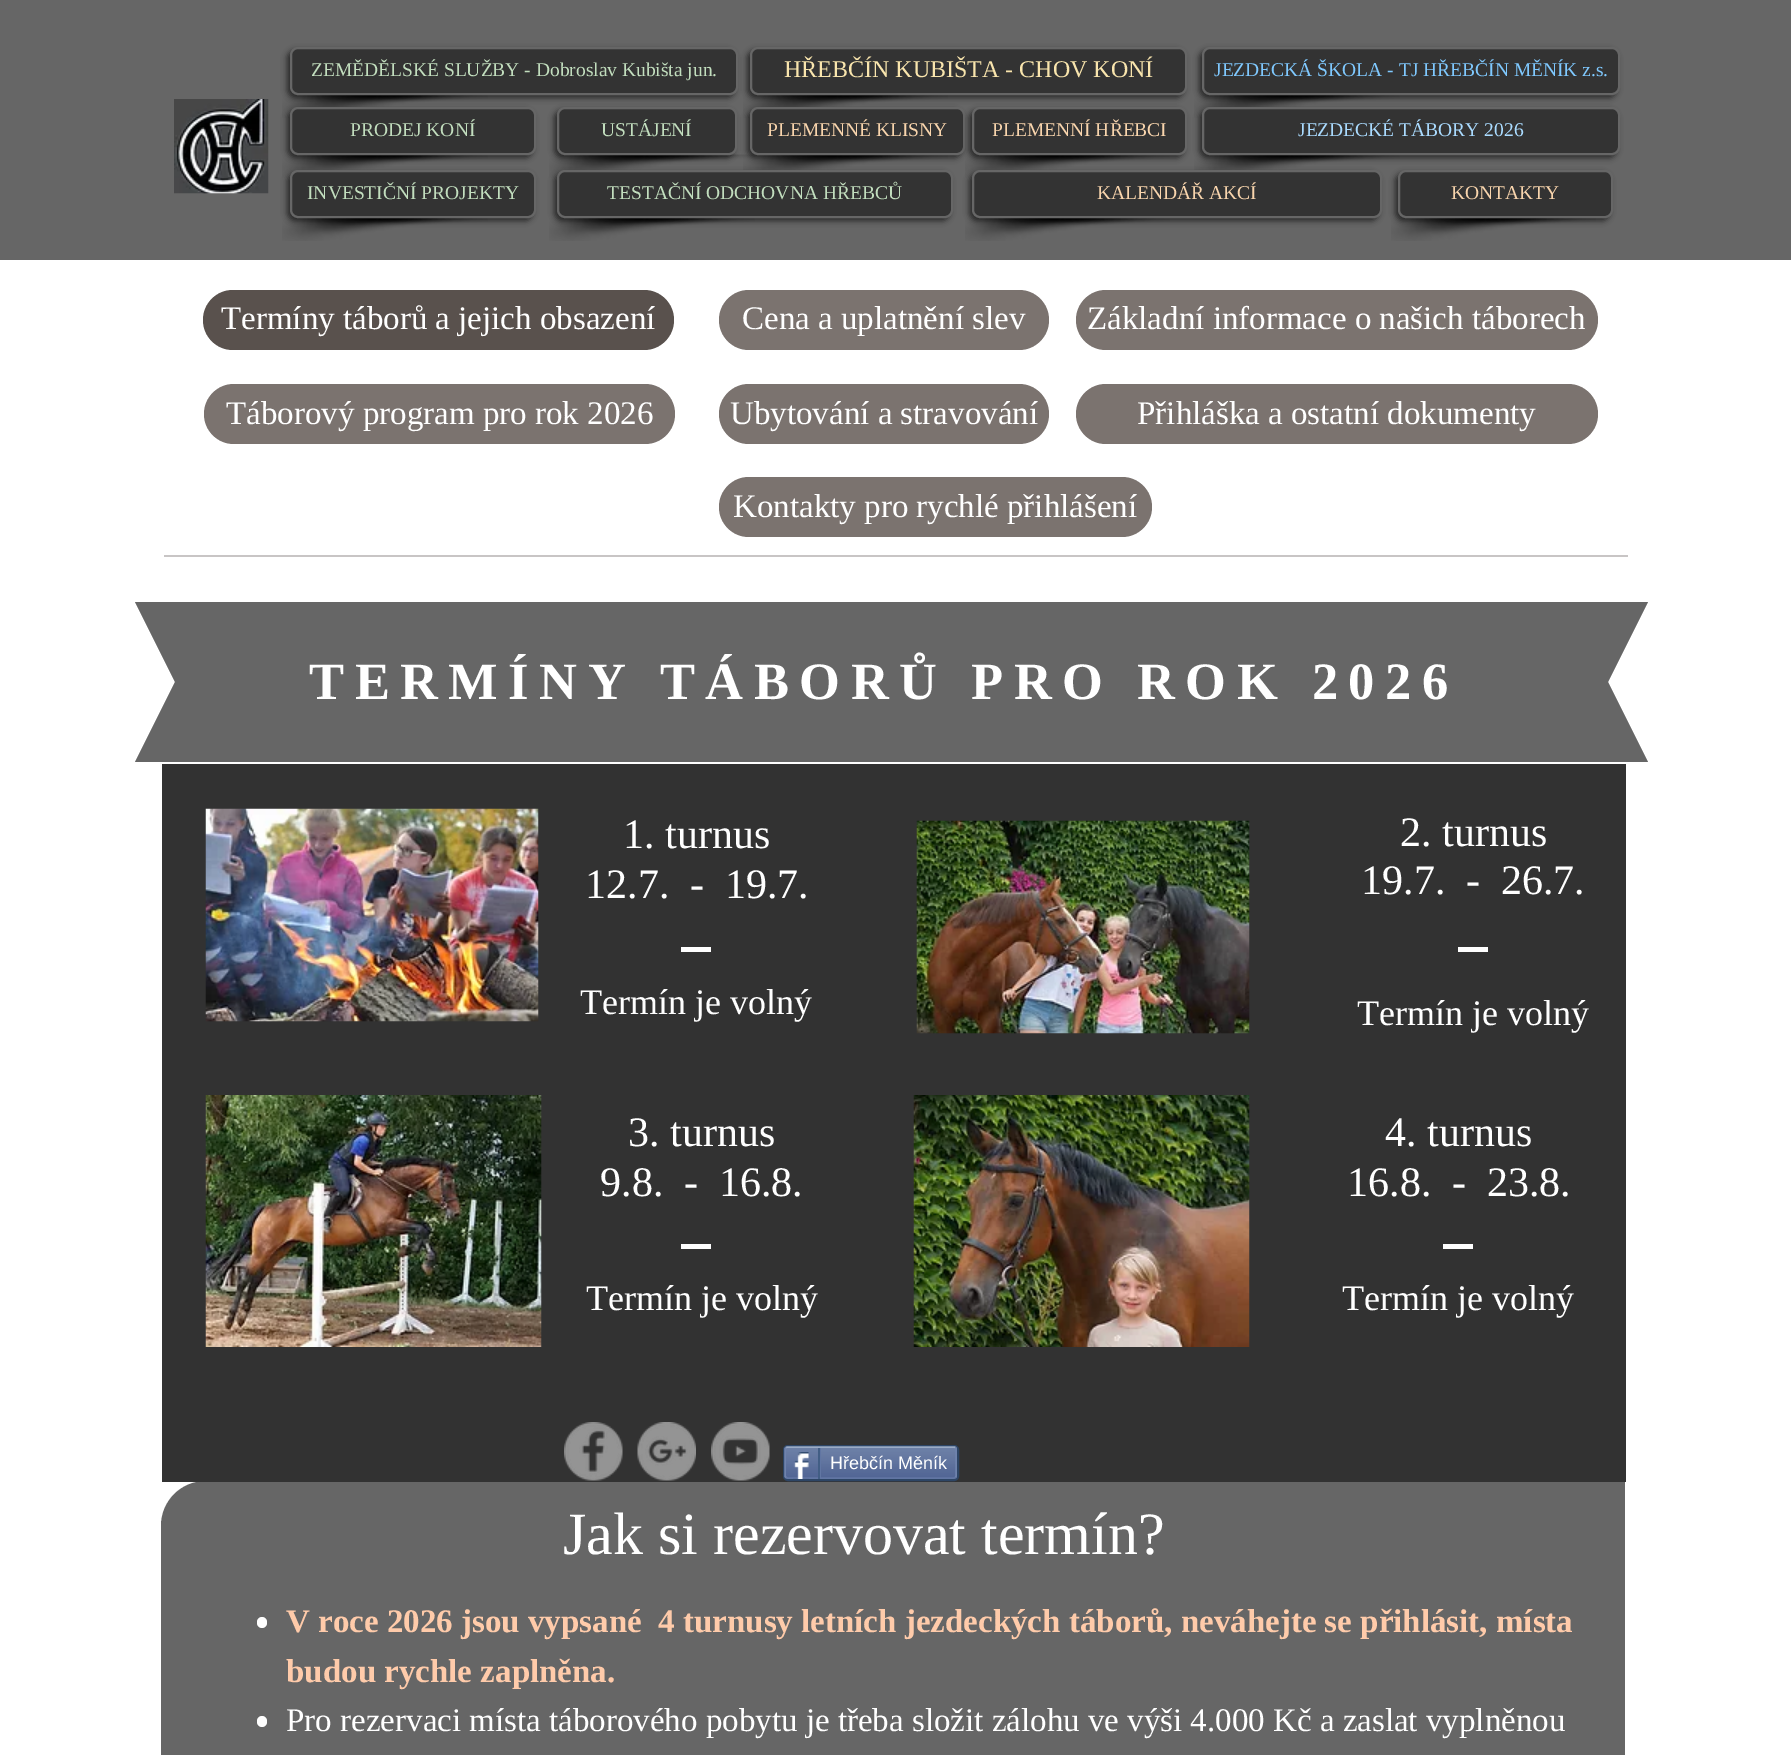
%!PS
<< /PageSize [1791 1755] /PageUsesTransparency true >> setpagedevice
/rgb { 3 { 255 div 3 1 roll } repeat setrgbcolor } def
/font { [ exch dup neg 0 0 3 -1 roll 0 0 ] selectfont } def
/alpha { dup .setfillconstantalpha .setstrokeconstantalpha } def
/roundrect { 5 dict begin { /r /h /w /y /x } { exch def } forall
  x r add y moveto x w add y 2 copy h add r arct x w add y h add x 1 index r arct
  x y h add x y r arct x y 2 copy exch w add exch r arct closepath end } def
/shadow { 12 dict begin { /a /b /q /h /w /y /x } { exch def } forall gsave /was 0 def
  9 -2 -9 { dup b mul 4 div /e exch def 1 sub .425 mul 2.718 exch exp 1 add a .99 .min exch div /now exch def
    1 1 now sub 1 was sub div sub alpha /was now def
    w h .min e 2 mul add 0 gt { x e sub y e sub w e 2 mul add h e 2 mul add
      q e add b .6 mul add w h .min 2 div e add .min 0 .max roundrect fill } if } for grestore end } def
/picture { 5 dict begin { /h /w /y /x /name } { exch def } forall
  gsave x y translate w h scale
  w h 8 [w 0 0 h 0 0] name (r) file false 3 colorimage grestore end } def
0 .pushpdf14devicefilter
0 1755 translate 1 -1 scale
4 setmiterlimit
255 255 255 rgb
0 0 1791 1755 rectfill
102 102 102 rgb
0 0 1791 260 rectfill
(img/1.rgb) 282 94 206 24 picture
0 0 0 rgb
287 50 448 48 8 3 0.6 shadow
51 51 51 rgb
291 48 446 46 7 roundrect gsave fill grestore
102 102 102 rgb
2 setlinewidth
stroke
(img/2.rgb) 743 94 205 24 picture
0 0 0 rgb
747 50 437 48 8 3 0.6 shadow
51 51 51 rgb
751 48 435 46 7 roundrect gsave fill grestore
102 102 102 rgb
stroke
(img/3.rgb) 1194 94 206 24 picture
0 0 0 rgb
1199 50 418 48 8 3 0.6 shadow
51 51 51 rgb
1203 48 416 46 7 roundrect gsave fill grestore
102 102 102 rgb
stroke
(img/4.rgb) 174 99 95 95 picture
(img/1.rgb) 282 154 206 24 picture
0 0 0 rgb
287 110 246 48 8 3 0.6 shadow
51 51 51 rgb
291 108 244 46 7 roundrect gsave fill grestore
102 102 102 rgb
stroke
(img/5.rgb) 549 154 206 24 picture
0 0 0 rgb
554 110 180 48 8 3 0.6 shadow
51 51 51 rgb
558 108 178 46 7 roundrect gsave fill grestore
102 102 102 rgb
stroke
(img/6.rgb) 743 154 205 16 picture
0 0 0 rgb
747 110 215 48 8 3 0.6 shadow
51 51 51 rgb
751 108 213 46 7 roundrect gsave fill grestore
102 102 102 rgb
stroke
(img/7.rgb) 965 154 205 24 picture
0 0 0 rgb
969 110 215 48 8 3 0.6 shadow
51 51 51 rgb
973 108 213 46 7 roundrect gsave fill grestore
102 102 102 rgb
stroke
(img/8.rgb) 1194 154 206 16 picture
0 0 0 rgb
1199 110 418 48 8 3 0.6 shadow
51 51 51 rgb
1203 108 416 46 7 roundrect gsave fill grestore
102 102 102 rgb
stroke
(img/1.rgb) 282 217 206 24 picture
0 0 0 rgb
287 173 246 48 8 3 0.6 shadow
51 51 51 rgb
291 171 244 46 7 roundrect gsave fill grestore
102 102 102 rgb
stroke
(img/5.rgb) 549 217 206 24 picture
0 0 0 rgb
554 173 396 48 8 3 0.6 shadow
51 51 51 rgb
558 171 394 46 7 roundrect gsave fill grestore
102 102 102 rgb
stroke
(img/9.rgb) 965 217 205 24 picture
0 0 0 rgb
969 173 410 48 8 3 0.6 shadow
51 51 51 rgb
973 171 408 46 7 roundrect gsave fill grestore
102 102 102 rgb
stroke
(img/9.rgb) 1391 217 205 24 picture
0 0 0 rgb
1395 173 215 48 8 3 0.6 shadow
51 51 51 rgb
1399 171 213 46 7 roundrect gsave fill grestore
102 102 102 rgb
stroke
89 81 77 rgb
203 290 471 60 30 roundrect fill
123 115 111 rgb
719 290 330 60 30 roundrect fill
1076 290 522 60 30 roundrect fill
204 384 471 60 30 roundrect fill
719 384 330 60 30 roundrect fill
1076 384 522 60 30 roundrect fill
719 477 433 60 30 roundrect fill
200 197 197 rgb
164 555 1464 2 rectfill
gsave
135 602 758 81 rectclip
102 102 102 rgb
135 602 moveto 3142 602 lineto 1642 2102 lineto 885 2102 lineto closepath fill
grestore
gsave
891 602 758 81 rectclip
102 102 102 rgb
-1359 602 moveto 1648 602 lineto 898 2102 lineto 141 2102 lineto closepath fill
grestore
gsave
135 681 758 81 rectclip
102 102 102 rgb
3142 762 moveto 135 762 lineto 885 -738 lineto 1642 -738 lineto closepath fill
grestore
gsave
891 681 758 81 rectclip
102 102 102 rgb
1648 762 moveto -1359 762 lineto 141 -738 lineto 898 -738 lineto closepath fill
grestore
102 102 102 rgb
206 1481 moveto 1625 1481 lineto 1625 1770 lineto 1625 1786.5 1611.5 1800 1595 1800 curveto 161 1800 lineto 161 1526 lineto 161 1501 181 1481 206 1481 curveto closepath fill
50 50 50 rgb
162 764 1464 718 rectfill
(img/10.rgb) 205 808 334 214 picture
(img/11.rgb) 916 820 334 214 picture
255 255 255 rgb
681 947 30 5 rectfill
1458 947 30 5 rectfill
(img/12.rgb) 205 1095 337 252 picture
(img/13.rgb) 913 1095 337 252 picture
681 1244 30 5 rectfill
1443 1244 30 5 rectfill
(img/14.rgb) 564 1422 59 59 picture
(img/15.rgb) 637 1422 59 59 picture
(img/16.rgb) 711 1422 59 59 picture
45 69 101 rgb
784 1446 174 34 4 roundrect stroke
(img/17.rgb) 784 1447 173 32 picture
154 171 198 rgb
1.5 setlinewidth
786 1447.5 moveto 787.5 1447 lineto 954 1447 lineto 955.5 1447.5 lineto stroke
111 131 173 rgb
955.5 1447.5 moveto 956 1448 956 1448.5 956 1449 curveto 956 1476 lineto 956 1476.5 956 1477 955.5 1477.5 curveto stroke
97 118 163 rgb
955.5 1477.5 moveto 954 1478 lineto 787.5 1478 lineto 786 1477.5 lineto stroke
111 131 173 rgb
786 1477.5 moveto 785.5 1477 785 1476.5 785 1476 curveto 785 1449 lineto 785 1448.5 785.5 1448 786 1447.5 curveto stroke
(img/18.rgb) 793 1452 16 27 picture
66 94 133 rgb
818 1448 2 31 rectfill
97 118 163 rgb
820 1448 1 30 rectfill
255 255 255 rgb
257 1617 10 11 5 roundrect fill
257 1716 10 11 5 roundrect fill
/LiberationSerif-Regular 19.5 font
194 222 190 rgb
311 76 moveto (ZEMĚDĚLSKÉ SLUŽBY - Dobroslav Kubišta jun.) show
/LiberationSerif-Regular 24 font
249 229 173 rgb
784 77 moveto (HŘEBČÍN KUBIŠTA - CHOV KONÍ) show
/LiberationSerif-Regular 19.5 font
127 201 255 rgb
1214 76 moveto (JEZDECKÁ ŠKOLA - TJ HŘEBČÍN MĚNÍK z.s.) show
194 222 190 rgb
350 136 moveto (PRODEJ KONÍ) show
601 136 moveto (USTÁJENÍ) show
249 213 173 rgb
767 136 moveto (PLEMENNÉ KLISNY) show
992 136 moveto (PLEMENNÍ HŘEBCI) show
170 219 255 rgb
1298 136 moveto (JEZDECKÉ TÁBORY 2026) show
194 222 190 rgb
307 199 moveto (INVESTIČNÍ PROJEKTY) show
607 199 moveto (TESTAČNÍ ODCHOVNA HŘEBCŮ) show
249 213 173 rgb
1097 199 moveto (KALENDÁŘ AKCÍ) show
1451 199 moveto (KONTAKTY) show
/LiberationSerif-Regular 33 font
255 255 255 rgb
[
  [(Termíny táborů a jejich obsazení) 221 329]
  [(Cena a uplatnění slev) 742 329]
  [(Základní informace o našich táborech) 1087 329]
  [(Táborový program pro rok 2026) 226 424]
  [(Ubytování a stravování) 730 424]
  [(Přihláška a ostatní dokumenty) 1137 424]
  [(Kontakty pro rychlé přihlášení) 733 517]
] { aload pop moveto show } forall
/LiberationSerif-Bold 52.5 font
309 699 moveto 10.5 0 (TERMÍNY TÁBORŮ PRO ROK 2026) ashow
/LiberationSerif-Regular 42 font
[
  [(1. turnus) 623 848]
  [(12.7.  -  19.7.) 585 898]
  [(2. turnus) 1400 846]
  [(19.7.  -  26.7.) 1361 894]
] { aload pop moveto show } forall
/LiberationSerif-Regular 36 font
580 1014 moveto (Termín je volný) show
1357 1025 moveto (Termín je volný) show
/LiberationSerif-Regular 42 font
[
  [(3. turnus) 628 1146]
  [(9.8.  -  16.8.) 600 1196]
  [(4. turnus) 1385 1146]
  [(16.8.  -  23.8.) 1347 1196]
] { aload pop moveto show } forall
/LiberationSerif-Regular 36 font
586 1310 moveto (Termín je volný) show
1342 1310 moveto (Termín je volný) show
/LiberationSans-Regular 18 font
830 1469 moveto (Hřebčín Měník) show
/LiberationSerif-Regular 60 font
563 1554 moveto (Jak si rezervovat termín?) show
/LiberationSerif-Bold 33 font
255 203 170 rgb
286 1632 moveto (V roce 2026 jsou vypsané  4 turnusy letních jezdeckých táborů, neváhejte se přihlásit, místa) show
286 1682 moveto (budou rychle zaplněna.) show
/LiberationSerif-Regular 33 font
255 255 255 rgb
286 1731 moveto (Pro rezervaci místa táborového pobytu je třeba složit zálohu ve výši 4.000 Kč a zaslat vyplněnou) show
.poppdf14devicefilter showpage
